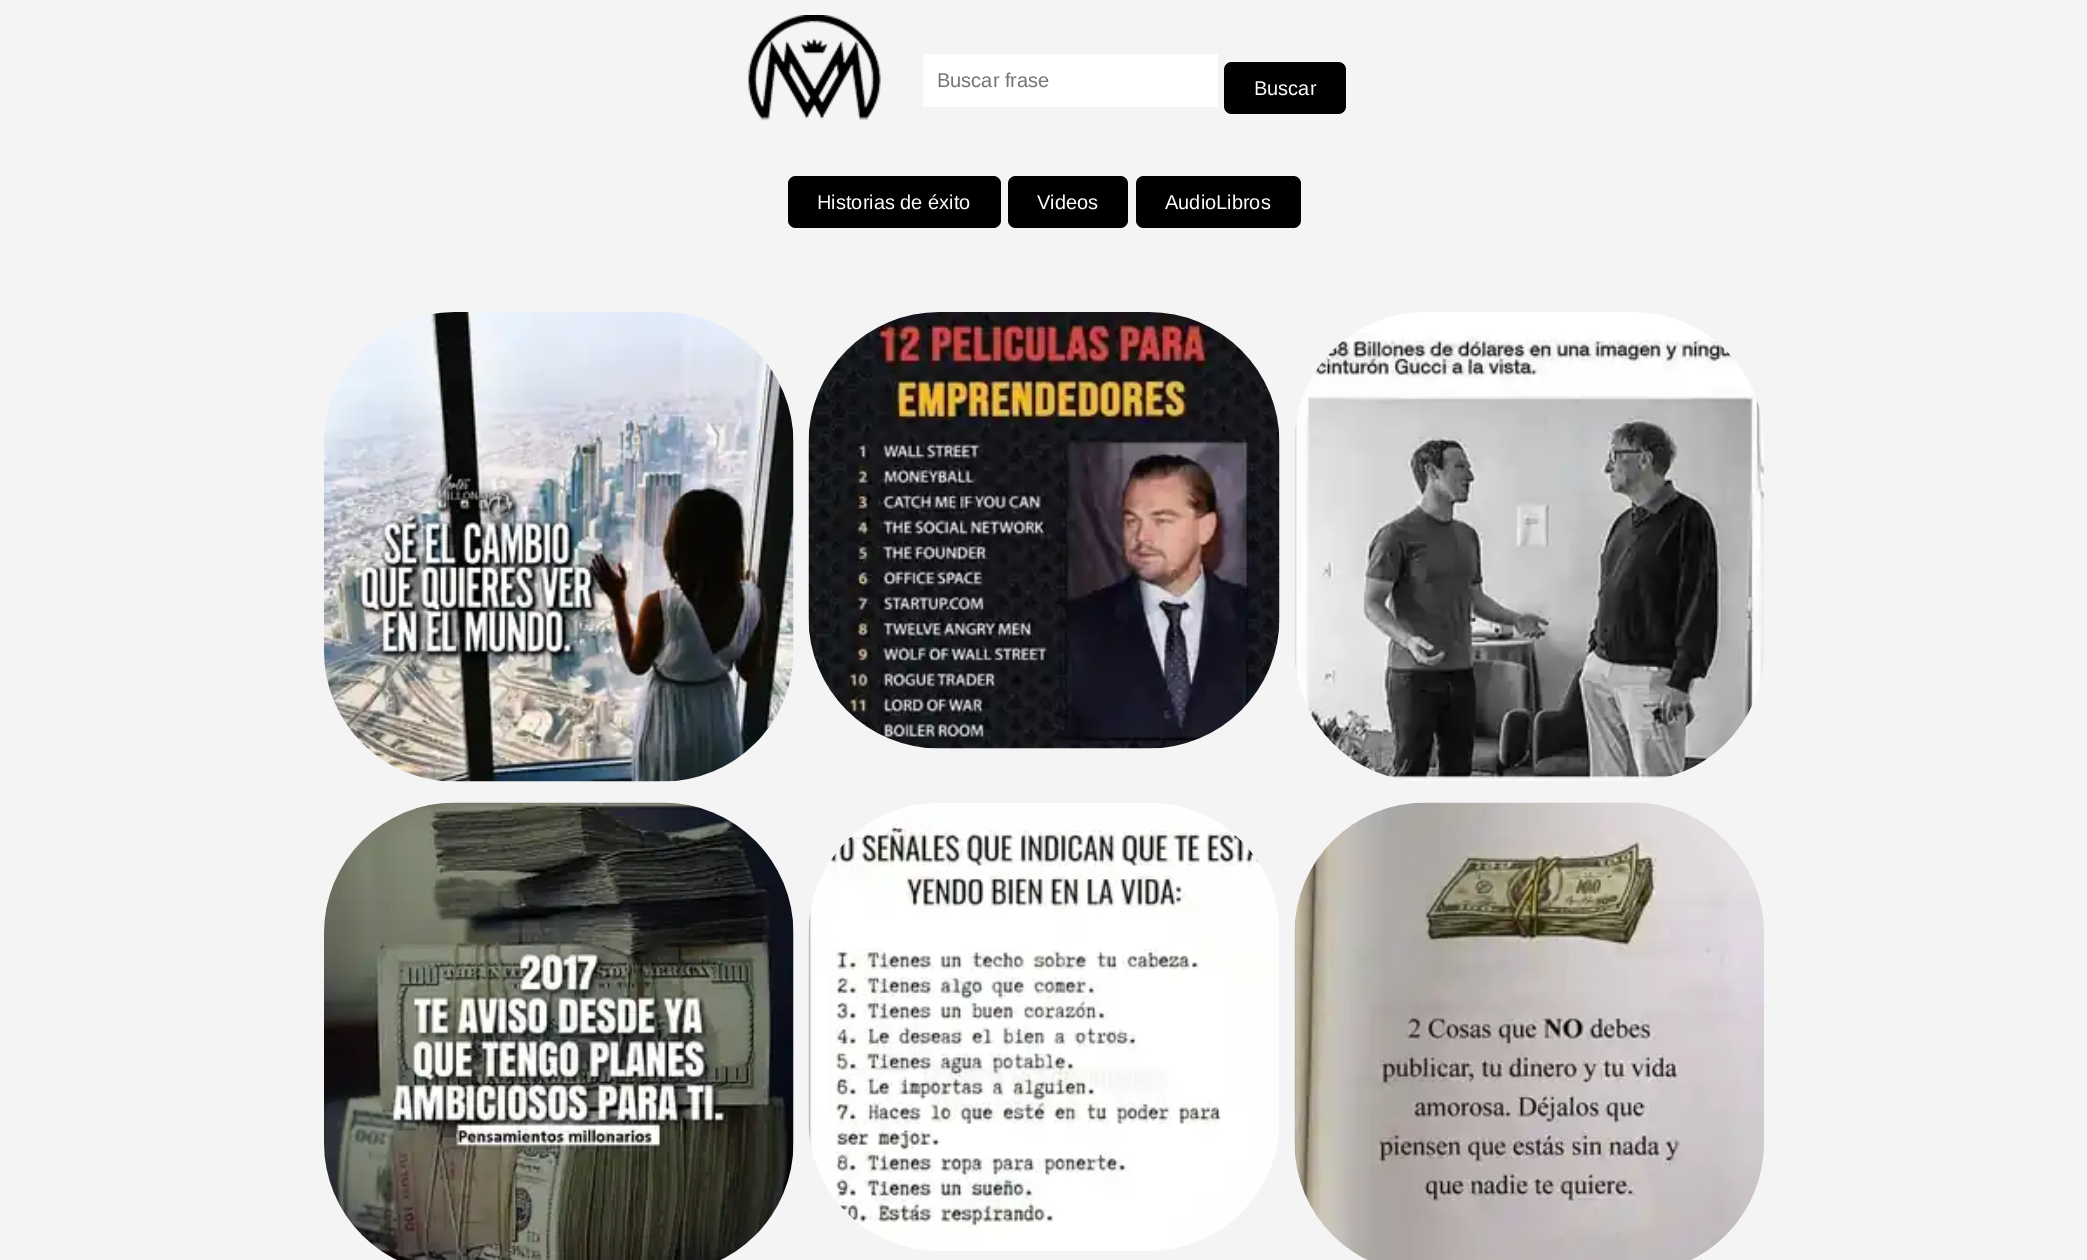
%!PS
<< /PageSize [2087 1260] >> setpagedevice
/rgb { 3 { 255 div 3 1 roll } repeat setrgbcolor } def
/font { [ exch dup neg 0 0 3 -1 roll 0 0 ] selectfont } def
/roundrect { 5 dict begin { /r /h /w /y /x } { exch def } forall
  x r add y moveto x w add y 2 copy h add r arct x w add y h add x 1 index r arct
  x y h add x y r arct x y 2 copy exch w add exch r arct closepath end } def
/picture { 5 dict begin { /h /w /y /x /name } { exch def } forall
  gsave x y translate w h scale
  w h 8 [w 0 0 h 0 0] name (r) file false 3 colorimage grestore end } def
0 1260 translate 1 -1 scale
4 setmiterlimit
244 244 244 rgb
0 0 2087 1260 rectfill
(img/1.rgb) 748 15 133 106 picture
255 255 255 rgb
923 54 295 53 rectfill
0 0 0 rgb
1224 62 122 52 8 roundrect fill
788 176 213 52 8 roundrect fill
1008 176 120 52 8 roundrect fill
1136 176 165 52 8 roundrect fill
(img/2.rgb) 324 312 470 470 picture
(img/3.rgb) 808 312 472 437 picture
(img/4.rgb) 1294 312 470 469 picture
(img/5.rgb) 324 802 470 458 picture
(img/6.rgb) 808 803 471 448 picture
(img/7.rgb) 1294 802 470 458 picture
/LiberationSans-Regular 20 font
117 117 117 rgb
937 87 moveto (Buscar frase) show
255 255 255 rgb
[
  [(Buscar) 1254 95]
  [(Historias de éxito) 817 209]
  [(Videos) 1037 209]
  [(AudioLibros) 1165 209]
] { aload pop moveto show } forall
showpage
